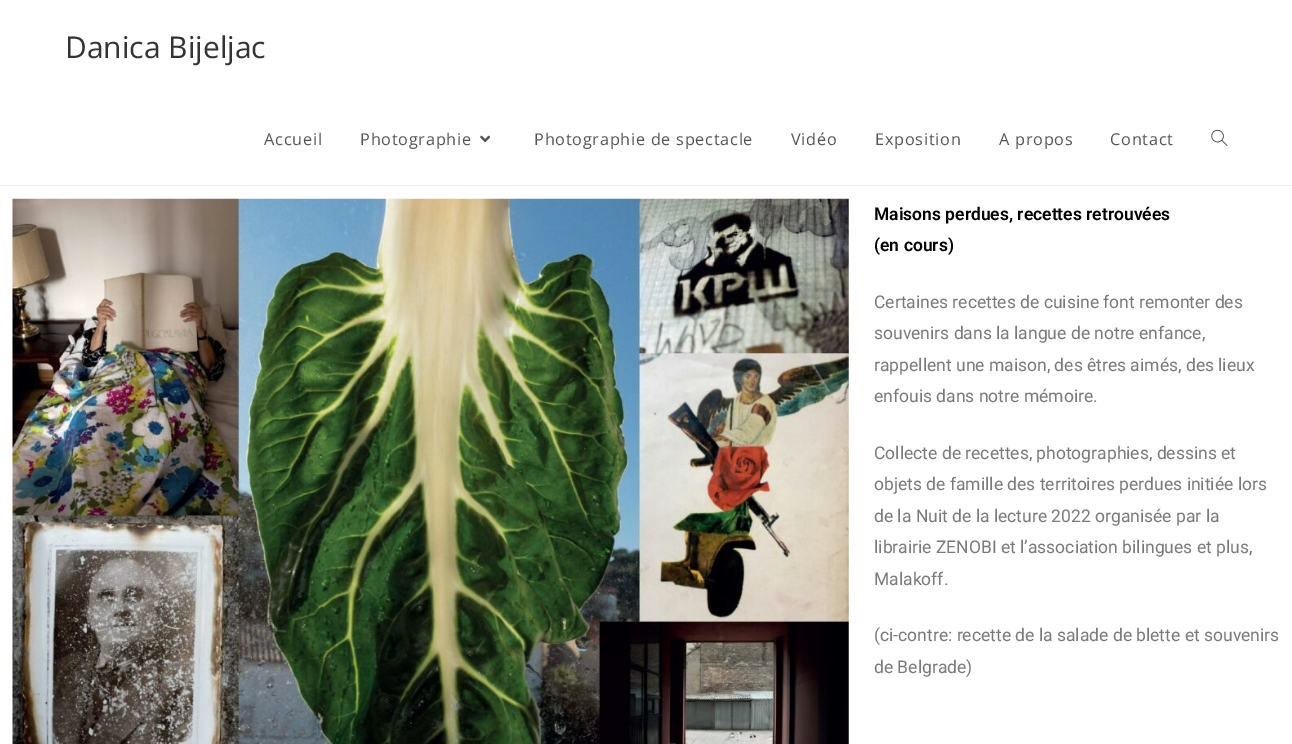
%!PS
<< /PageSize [1292 744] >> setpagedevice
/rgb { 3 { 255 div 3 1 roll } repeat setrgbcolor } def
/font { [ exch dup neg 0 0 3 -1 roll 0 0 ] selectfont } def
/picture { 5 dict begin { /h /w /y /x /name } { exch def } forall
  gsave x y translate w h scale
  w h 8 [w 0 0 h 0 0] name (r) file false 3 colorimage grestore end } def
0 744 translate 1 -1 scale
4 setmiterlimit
255 255 255 rgb
0 0 1292 744 rectfill
241 241 241 rgb
0 185 1292 1 rectfill
(img/1.rgb) 480 135 11 8 picture
(img/2.rgb) 1211 129 17 17 picture
(img/3.rgb) 12 198 837 546 picture
/OpenSans-Regular 30 font
51 51 51 rgb
65 58 moveto (Danica Bijeljac) show
/OpenSans-Regular 16.25 font
85 85 85 rgb
264 145 moveto 0.75 0 (Accueil) ashow
360 145 moveto 0.75 0 (Photographie) ashow
534 145 moveto 0.75 0 (Photographie de spectacle) ashow
791 145 moveto 0.75 0 (Vidéo) ashow
875 145 moveto 0.75 0 (Exposition) ashow
999 145 moveto 0.75 0 (A propos) ashow
1110 145 moveto 0.75 0 (Contact) ashow
/Roboto-SemiBold 17.5 font
0 0 0 rgb
874 220 moveto (Maisons perdues, recettes retrouvées) show
874 251 moveto (\(en cours\)) show
/Roboto-Regular 17.5 font
122 122 122 rgb
[
  [(Certaines recettes de cuisine font remonter des) 874 308]
  [(souvenirs dans la langue de notre enfance,) 874 339]
  [(rappellent une maison, des êtres aimés, des lieux) 874 371]
  [(enfouis dans notre mémoire.) 874 402]
  [(Collecte de recettes, photographies, dessins et) 874 459]
  [(objets de famille des territoires perdues initiée lors) 874 490]
  [(de la Nuit de la lecture 2022 organisée par la) 874 522]
  [(librairie ZENOBI et l’association bilingues et plus,) 874 553]
  [(Malakoff.) 874 585]
  [(\(ci-contre: recette de la salade de blette et souvenirs) 874 641]
  [(de Belgrade\)) 874 673]
] { aload pop moveto show } forall
showpage
